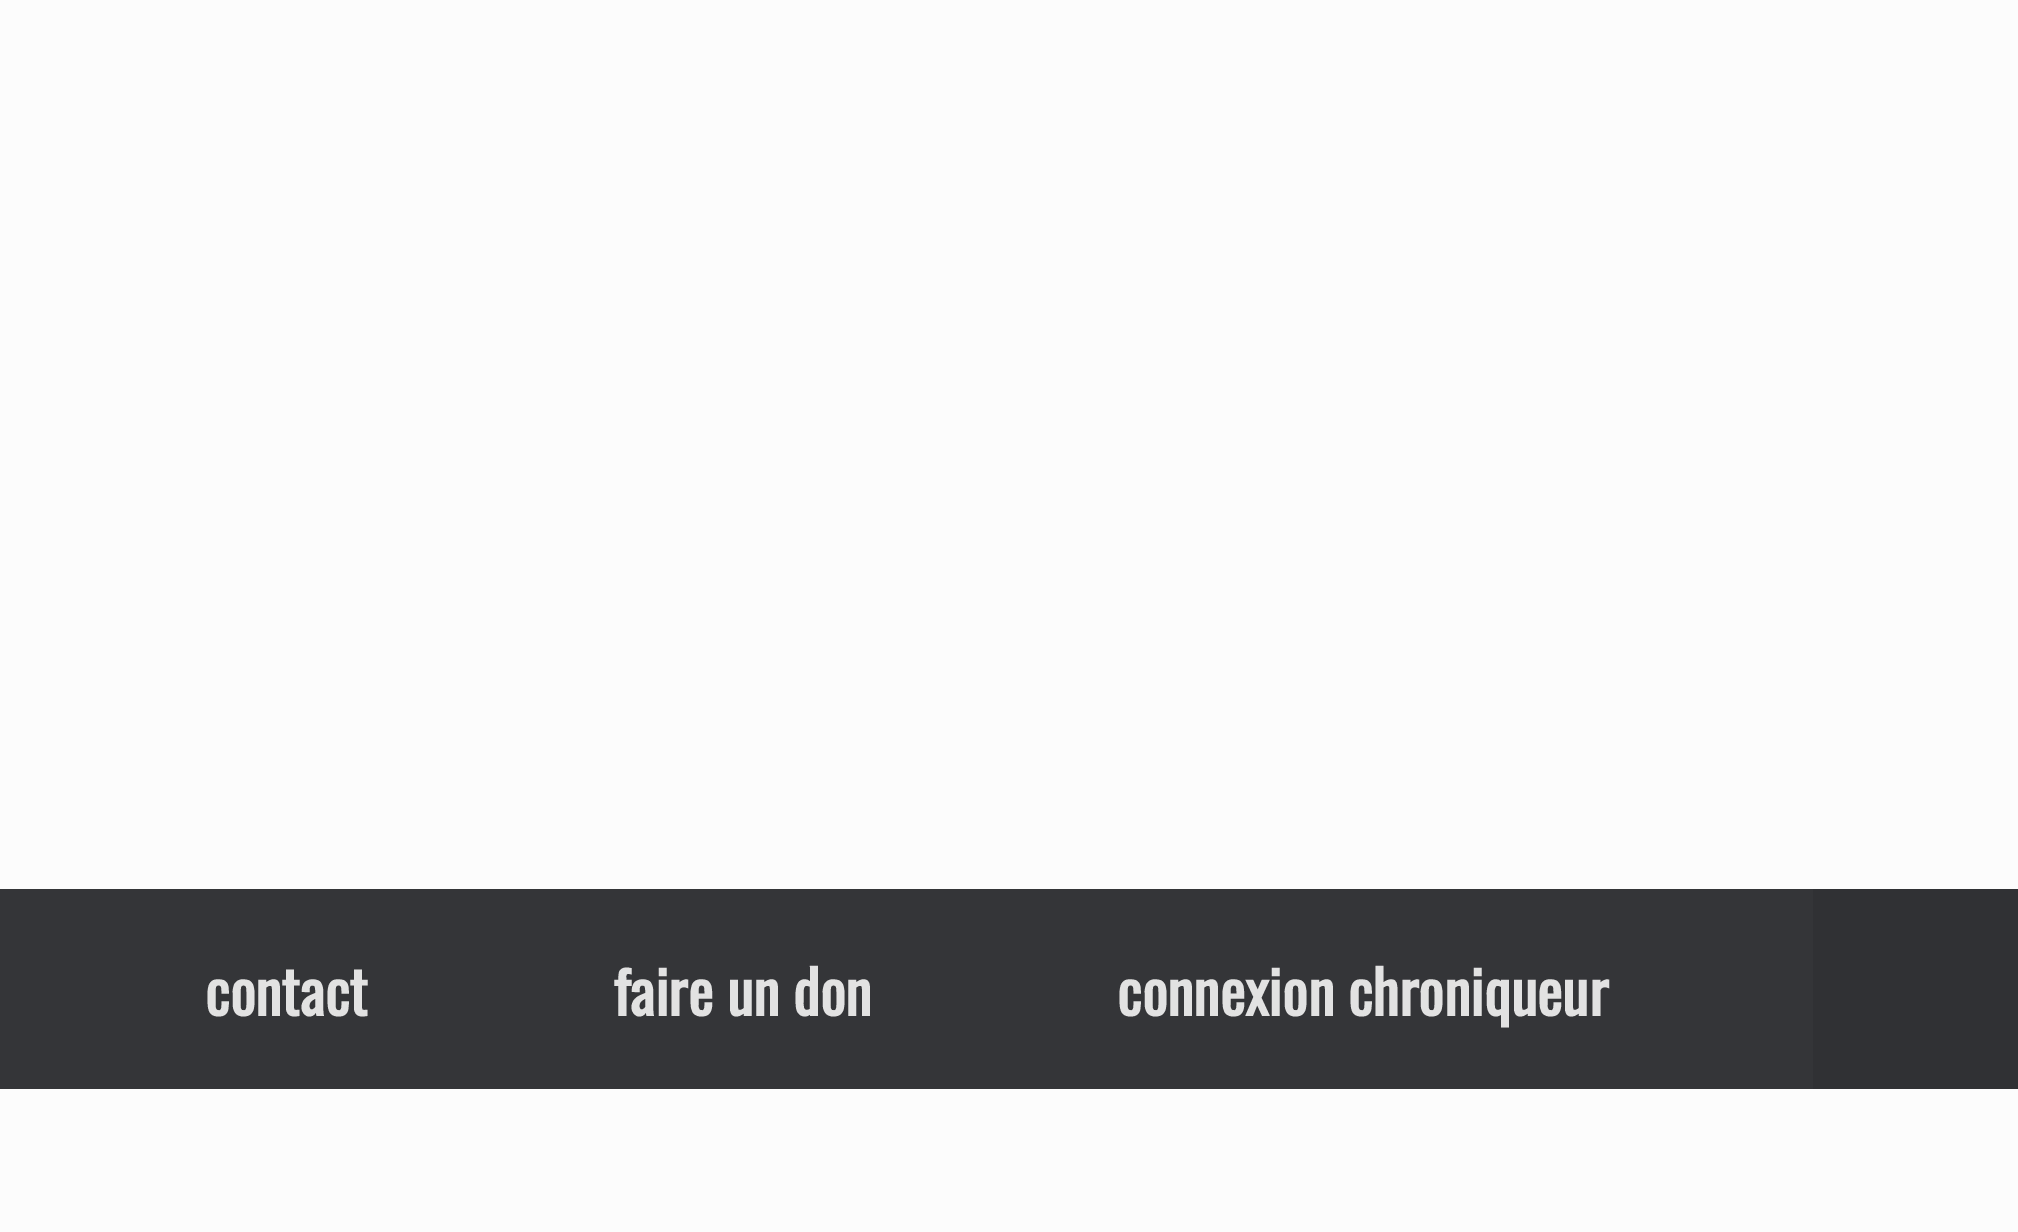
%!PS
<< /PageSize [2018 1232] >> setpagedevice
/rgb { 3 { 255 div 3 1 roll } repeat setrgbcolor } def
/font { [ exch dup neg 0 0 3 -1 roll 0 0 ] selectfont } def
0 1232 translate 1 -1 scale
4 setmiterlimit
252 252 252 rgb
0 0 2018 1232 rectfill
52 53 56 rgb
0 889 1813 200 rectfill
48 49 52 rgb
1813 889 205 200 rectfill
/Oswald-Bold 60 font
226 226 226 rgb
[
  [(contact) 205 1016]
  [(faire un don) 613 1016]
  [(connexion chroniqueur) 1117 1016]
] { aload pop moveto show } forall
showpage
